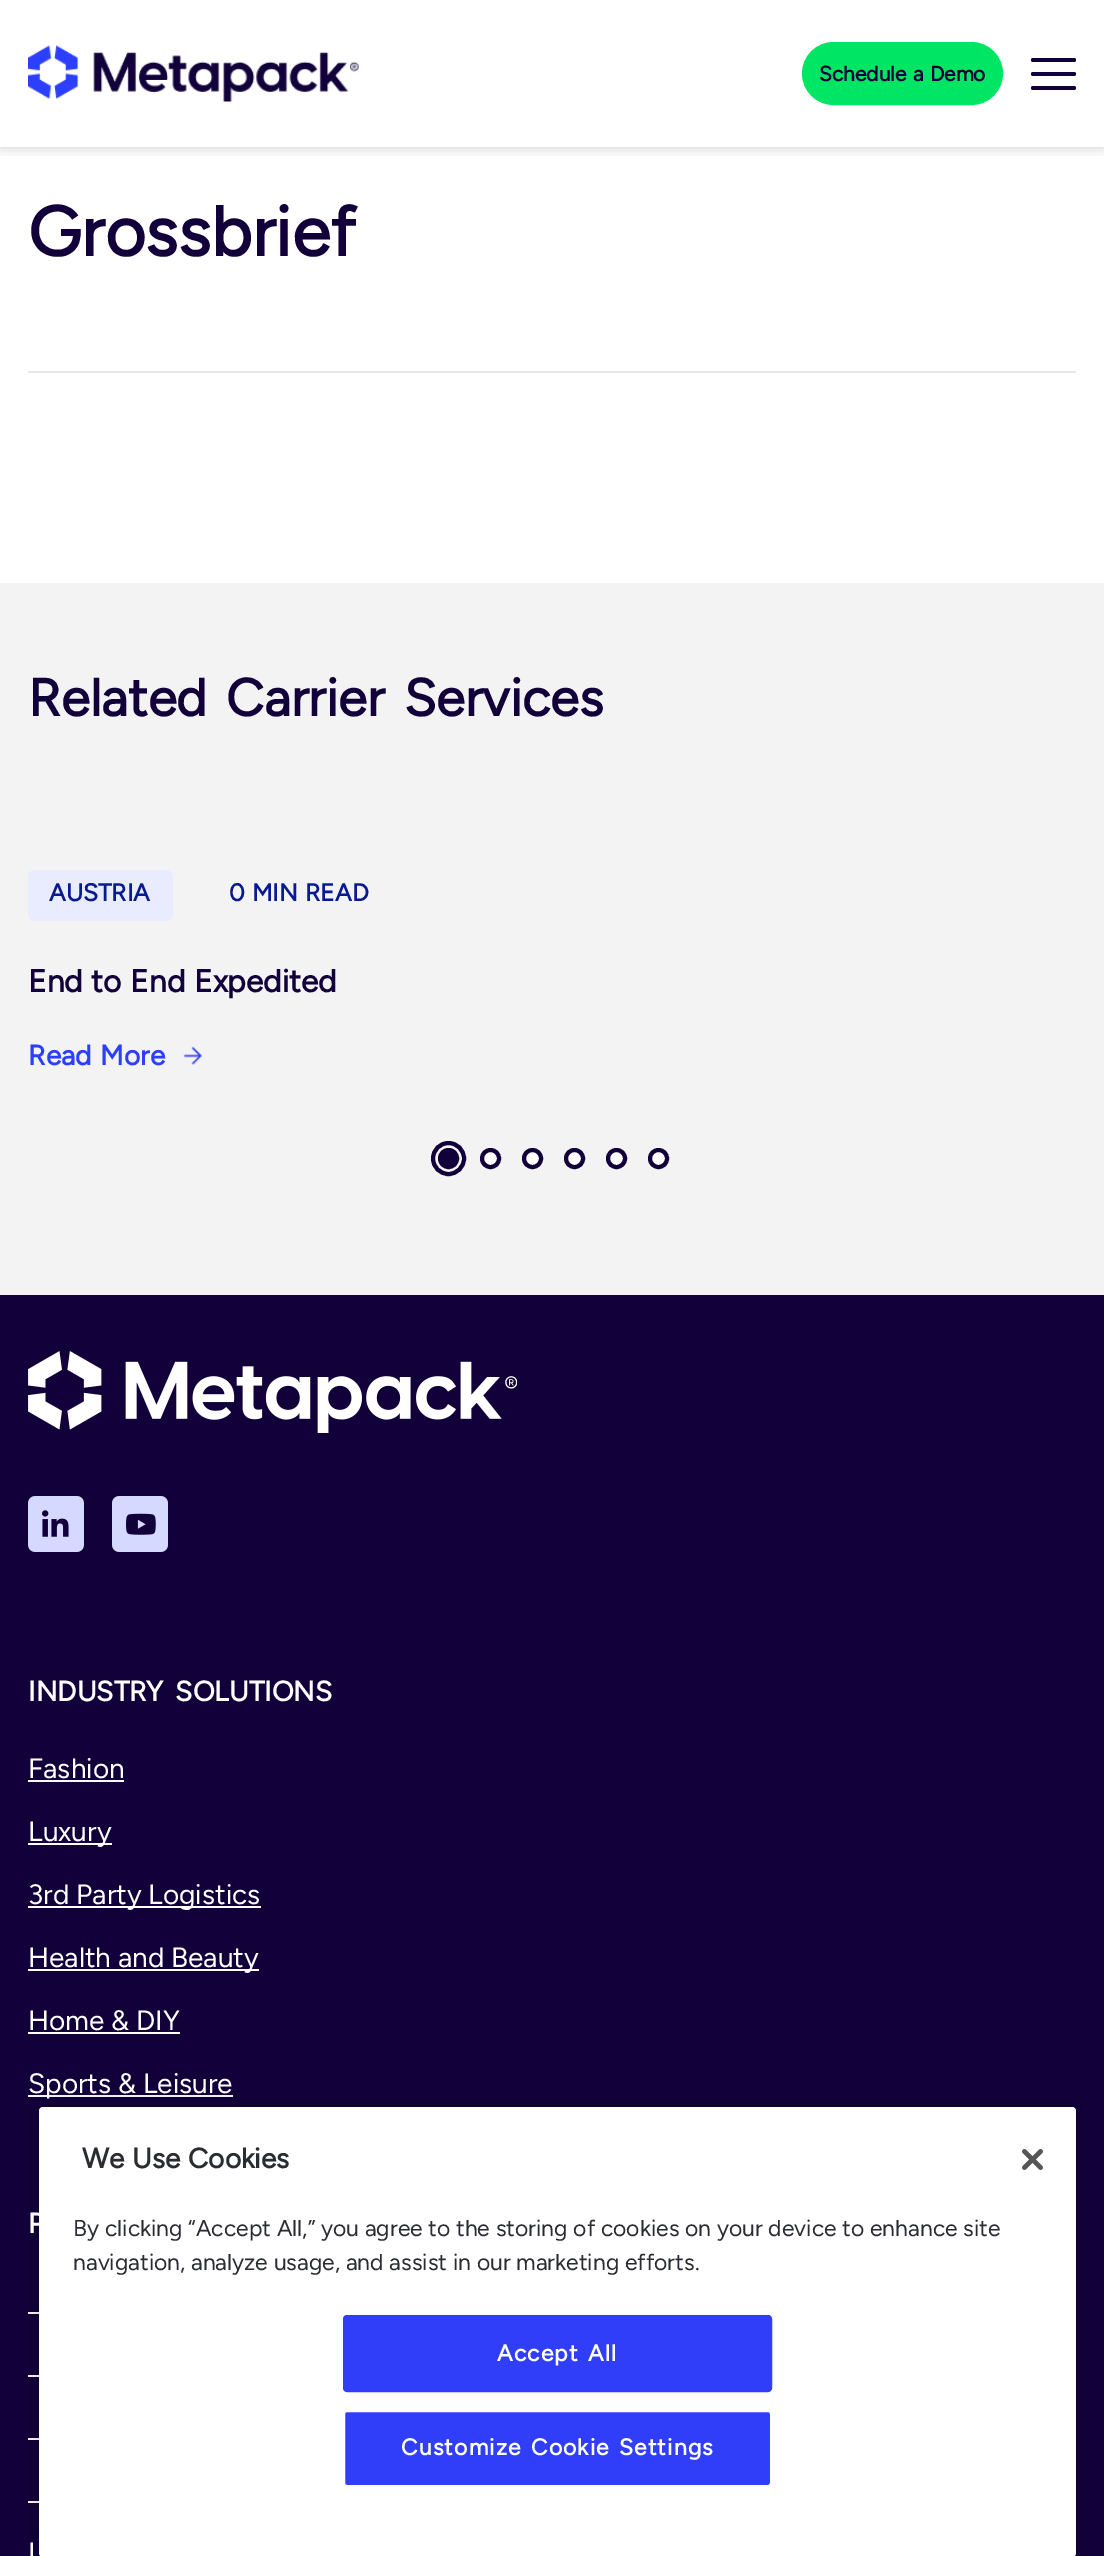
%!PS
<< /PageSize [1104 2556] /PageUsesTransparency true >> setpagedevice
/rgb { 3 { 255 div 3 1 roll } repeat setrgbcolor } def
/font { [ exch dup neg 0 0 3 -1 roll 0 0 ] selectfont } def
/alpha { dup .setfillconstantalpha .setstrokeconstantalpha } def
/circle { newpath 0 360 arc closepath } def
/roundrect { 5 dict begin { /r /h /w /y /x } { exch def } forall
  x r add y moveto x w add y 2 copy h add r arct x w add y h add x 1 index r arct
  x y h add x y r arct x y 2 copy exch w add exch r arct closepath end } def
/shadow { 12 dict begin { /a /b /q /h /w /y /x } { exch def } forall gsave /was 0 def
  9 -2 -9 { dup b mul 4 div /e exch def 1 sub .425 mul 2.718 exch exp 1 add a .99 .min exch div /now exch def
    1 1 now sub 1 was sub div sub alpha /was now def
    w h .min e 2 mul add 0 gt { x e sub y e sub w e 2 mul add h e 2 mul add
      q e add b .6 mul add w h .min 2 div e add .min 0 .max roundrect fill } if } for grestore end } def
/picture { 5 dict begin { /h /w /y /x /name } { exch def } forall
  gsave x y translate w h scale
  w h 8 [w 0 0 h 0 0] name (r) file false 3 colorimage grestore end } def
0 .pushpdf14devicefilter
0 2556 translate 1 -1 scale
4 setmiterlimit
255 255 255 rgb
0 0 1104 2556 rectfill
gsave
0 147 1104 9 rectclip
0 0 0 rgb
0 0 1104 147 0 7 0.2 shadow
grestore
(img/1.rgb) 28 45 331 57 picture
0 230 100 rgb
804 44 197 59 29.5 roundrect gsave fill grestore
4 setlinewidth
stroke
17 0 58 rgb
1031 58 45 4 2 roundrect fill
1031 72 45 4 2 roundrect fill
1031 86 45 4 2 roundrect fill
229 231 235 rgb
28 371 1048 2 rectfill
243 243 243 rgb
0 583 1104 712 rectfill
233 236 255 rgb
28 870 145 51 7 roundrect fill
(img/2.rgb) 183 1046 20 19 picture
17 0 58 rgb
448.5 1158.5 8.5 circle gsave fill grestore
stroke
448.5 1158.5 15.5 circle stroke
255 255 255 rgb
490.5 1158.5 8.5 circle gsave fill grestore
17 0 58 rgb
stroke
255 255 255 rgb
532.5 1158.5 8.5 circle gsave fill grestore
17 0 58 rgb
stroke
255 255 255 rgb
574.5 1158.5 8.5 circle gsave fill grestore
17 0 58 rgb
stroke
255 255 255 rgb
616.5 1158.5 8.5 circle gsave fill grestore
17 0 58 rgb
stroke
255 255 255 rgb
658.5 1158.5 8.5 circle gsave fill grestore
17 0 58 rgb
stroke
0 1295 1104 1261 rectfill
(img/3.rgb) 28 1351 489 82 picture
(img/4.rgb) 28 1496 56 56 picture
(img/5.rgb) 112 1496 56 56 picture
[
  [28 1780 96 2 255 255 255]
  [28 1843 84 2 255 255 255]
  [28 1906 233 2 255 255 255]
  [28 1969 231 2 255 255 255]
  [28 2032 152 2 255 255 255]
  [28 2095 205 2 255 255 255]
  [28 2312 11 2 255 255 255]
  [28 2375 11 2 255 255 255]
  [28 2438 11 2 255 255 255]
  [28 2501 11 2 255 255 255]
] { aload pop rgb rectfill } forall
0 0 0 rgb
39 2107 1037 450 4 16 0.2 shadow
255 255 255 rgb
39 2107 1037 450 4 roundrect fill
(img/6.rgb) 1022 2149 21 21 picture
48 62 250 rgb
344 2316 427 75 3 roundrect gsave fill grestore
2 setlinewidth
stroke
344 2411 427 75 3 roundrect gsave fill grestore
255 255 255 rgb
stroke
/Figtree-Bold 21 font
17 0 58 rgb
819 81 moveto 1 0 32 (Schedule a Demo) widthshow
/Figtree-Bold 70 font
28 256 moveto (Grossbrief) show
/Figtree-Bold 52.5 font
28 716 moveto 6 0 32 (Related Carrier Services) widthshow
/Figtree-Bold 24.5 font
8 26 143 rgb
49 901 moveto (AUSTRIA) show
229 901 moveto 1 0 32 (0 MIN READ) widthshow
/Figtree-Bold 31.5 font
17 0 58 rgb
28 992 moveto 1 0 32 (End to End Expedited) widthshow
/Figtree-Bold 28 font
44 63 255 rgb
28 1065 moveto 2 0 32 (Read More) widthshow
255 255 255 rgb
28 1701 moveto 5 0 32 (INDUSTRY SOLUTIONS) widthshow
/Figtree-Regular 28 font
[
  [(Fashion) 28 1778]
  [(Luxury) 28 1841]
  [(3rd Party Logistics) 28 1904]
  [(Health and Beauty) 28 1967]
  [(Home & DIY) 28 2030]
  [(Sports & Leisure) 28 2093]
] { aload pop moveto show } forall
/Figtree-Bold 28 font
28 2233 moveto (P) show
/Figtree-Regular 28 font
28 2562 moveto (I) show
/Figtree-Bold 28 font
42 44 49 rgb
82 2168 moveto 1 0 32 (We Use Cookies) widthshow
/Figtree-Regular 22.95 font
73 2236 moveto (By clicking “Accept All,” you agree to the storing of cookies on your device to enhance site) show
73 2270 moveto (navigation, analyze usage, and assist in our marketing efforts.) show
/Figtree-Bold 22.95 font
255 255 255 rgb
497 2361 moveto 2 0 32 1.15 0 (Accept All) awidthshow
401 2455 moveto 2 0 32 1.15 0 (Customize Cookie Settings) awidthshow
.poppdf14devicefilter showpage
